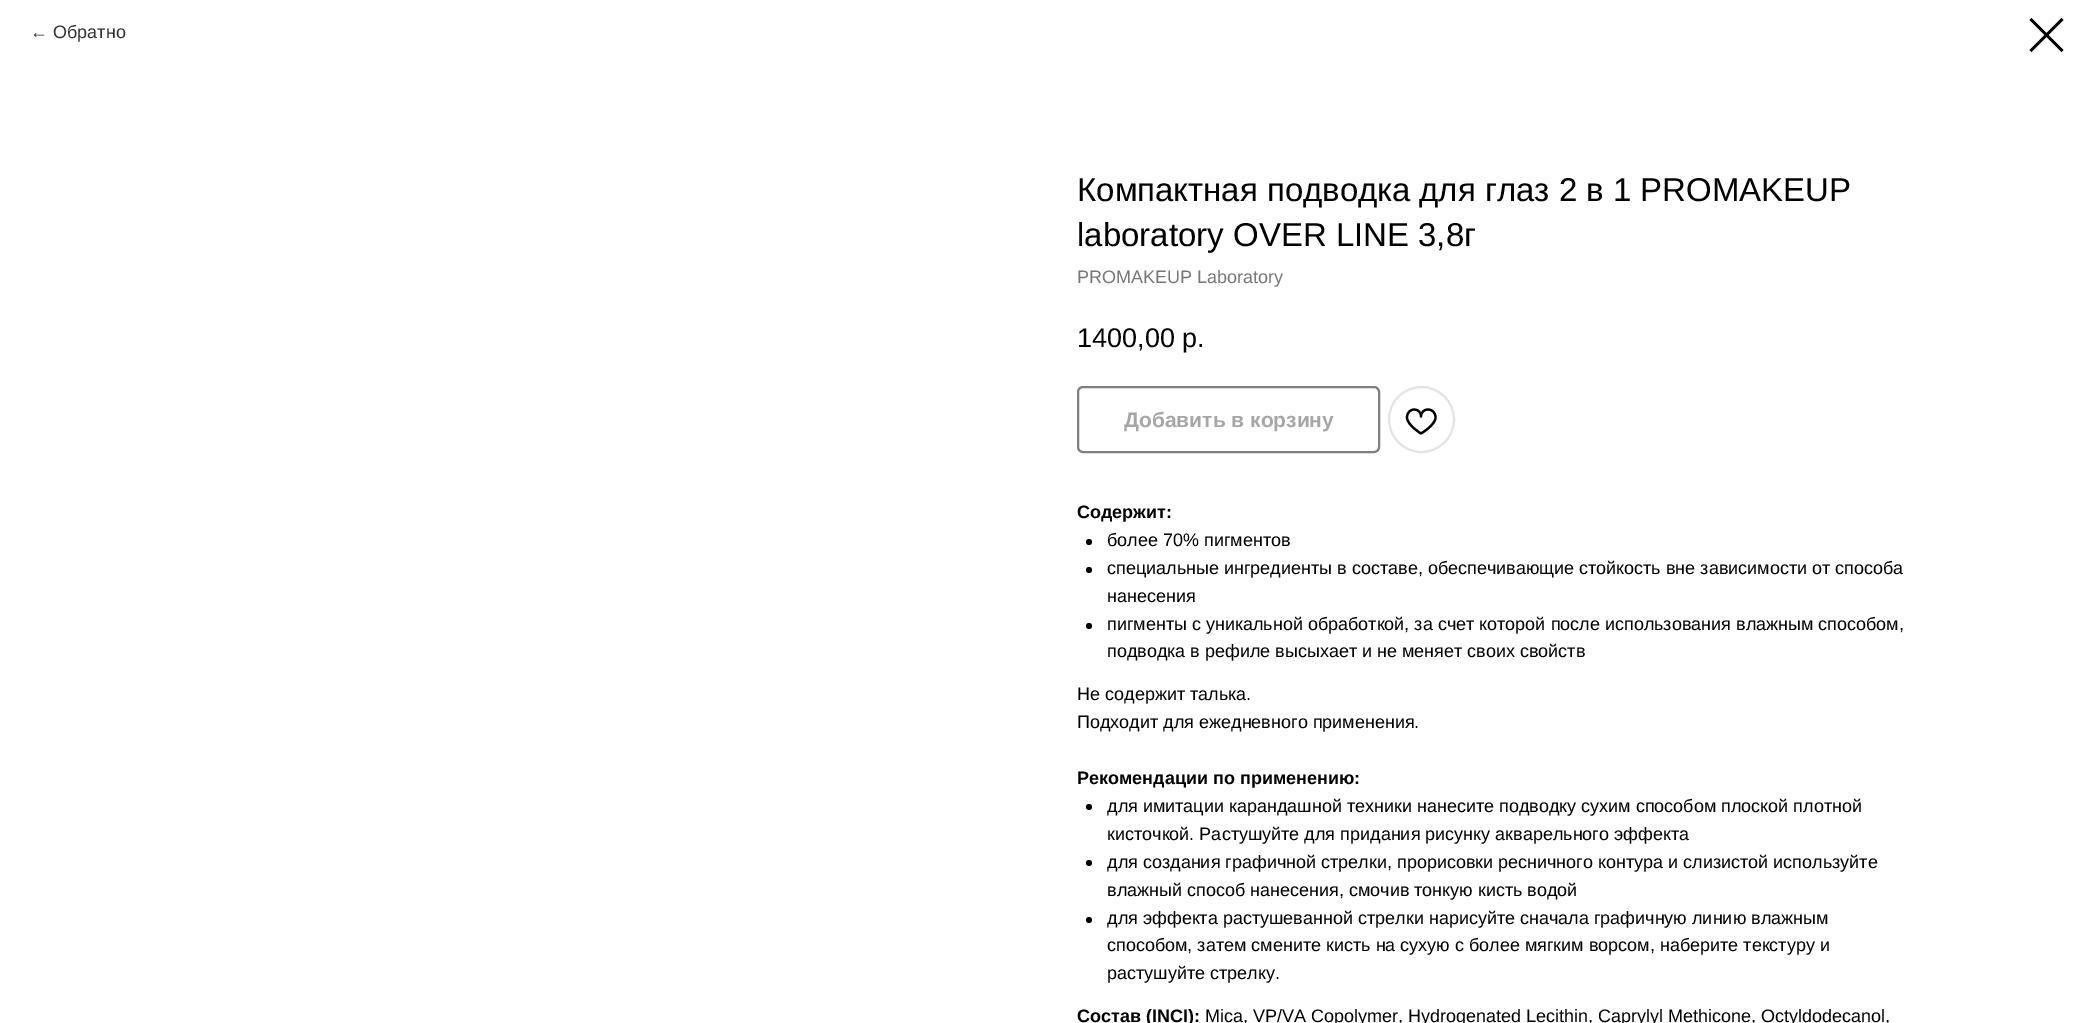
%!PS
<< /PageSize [2094 1023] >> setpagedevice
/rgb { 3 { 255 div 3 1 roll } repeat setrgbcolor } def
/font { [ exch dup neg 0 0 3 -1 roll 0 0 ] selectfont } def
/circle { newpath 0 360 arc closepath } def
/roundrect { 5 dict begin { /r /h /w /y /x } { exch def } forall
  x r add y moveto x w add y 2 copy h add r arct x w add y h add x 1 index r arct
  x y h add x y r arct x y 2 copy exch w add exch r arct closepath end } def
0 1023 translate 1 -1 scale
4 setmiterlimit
255 255 255 rgb
0 0 2094 1023 rectfill
0 0 0 rgb
2029.5 20 moveto 2031.5 18 lineto 2063.5 50 lineto 2061.5 52 lineto closepath eofill
2061.5 18 moveto 2063.5 20 lineto 2031.5 52 lineto 2029.5 50 lineto closepath eofill
128 128 128 rgb
2 setlinewidth
1078 387 301 65 5 roundrect stroke
228 228 228 rgb
1421.5 419.5 32.5 circle stroke
0 0 0 rgb
2.2 setlinewidth
1 setlinejoin
1435.5 417.5 moveto 1435.5 425 1421 433.5 1421 433.5 curveto 1421 433.5 1407 425 1407 417.5 curveto 1407 407 1421 407 1421 416.5 curveto 1421 407 1435.5 407 1435.5 417.5 curveto closepath stroke
1089 542 3 circle fill
1089 570 3 circle fill
1089 626 3 circle fill
1089 807 3 circle fill
1089 863 3 circle fill
1089 920 3 circle fill
/LiberationSans-Regular 18 font
51 51 51 rgb
30 38 moveto (← Обратно) show
/LiberationSans-Regular 33 font
0 0 0 rgb
1077 201 moveto (Компактная подводка для глаз 2 в 1 PROMAKEUP) show
1077 246 moveto (laboratory OVER LINE 3,8г) show
/LiberationSans-Regular 18 font
119 119 119 rgb
1077 283 moveto (PROMAKEUP Laboratory) show
/LiberationSans-Regular 27 font
0 0 0 rgb
1077 347 moveto (1400,00 р.) show
/LiberationSans-Bold 21 font
166 166 166 rgb
1124 427 moveto (Добавить в корзину) show
/LiberationSans-Bold 18 font
0 0 0 rgb
1077 518 moveto (Содержит:) show
/LiberationSans-Regular 18 font
[
  [(более 70% пигментов) 1107 546]
  [(специальные ингредиенты в составе, обеспечивающие стойкость вне зависимости от способа) 1107 574]
  [(нанесения) 1107 602]
  [(пигменты с уникальной обработкой, за счет которой после использования влажным способом,) 1107 630]
  [(подводка в рефиле высыхает и не меняет своих свойств) 1107 657]
  [(Не содержит талька.) 1077 700]
  [(Подходит для ежедневного применения.) 1077 728]
] { aload pop moveto show } forall
/LiberationSans-Bold 18 font
1077 784 moveto (Рекомендации по применению:) show
/LiberationSans-Regular 18 font
[
  [(для имитации карандашной техники нанесите подводку сухим способом плоской плотной) 1107 812]
  [(кисточкой. Растушуйте для придания рисунку акварельного эффекта) 1107 840]
  [(для создания графичной стрелки, прорисовки ресничного контура и слизистой используйте) 1107 868]
  [(влажный способ нанесения, смочив тонкую кисть водой) 1107 896]
  [(для эффекта растушеванной стрелки нарисуйте сначала графичную линию влажным) 1107 924]
  [(способом, затем смените кисть на сухую с более мягким ворсом, наберите текстуру и) 1107 951]
  [(растушуйте стрелку.) 1107 979]
] { aload pop moveto show } forall
/LiberationSans-Bold 18 font
1077 1022 moveto (Состав \(INCI\):) show
/LiberationSans-Regular 18 font
1205 1022 moveto (Mica, VP/VA Copolymer, Hydrogenated Lecithin, Caprylyl Methicone, Octyldodecanol,) show
showpage
